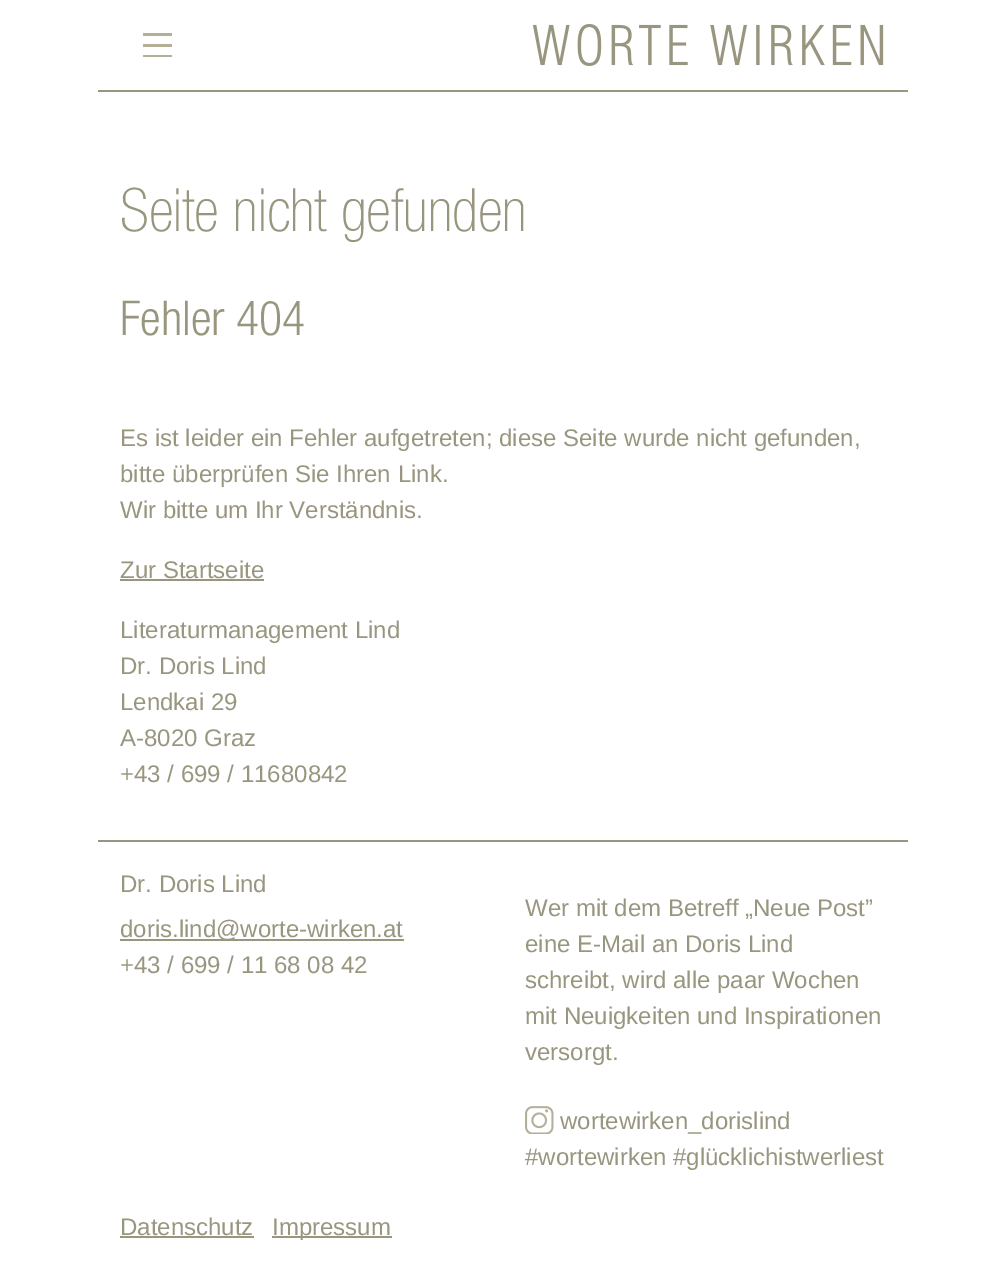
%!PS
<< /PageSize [1005 1261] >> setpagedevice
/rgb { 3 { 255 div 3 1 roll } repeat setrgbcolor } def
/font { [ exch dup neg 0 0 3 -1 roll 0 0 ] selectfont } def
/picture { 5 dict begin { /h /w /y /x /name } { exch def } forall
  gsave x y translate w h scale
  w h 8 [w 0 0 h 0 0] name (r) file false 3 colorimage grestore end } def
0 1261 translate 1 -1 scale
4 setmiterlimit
255 255 255 rgb
0 0 1005 1261 rectfill
[
  [98 90 810 2 153 150 127]
  [143 44 29 3 180 176 150]
  [143 33 29 3 180 176 150]
  [143 55 29 2 180 176 150]
] { aload pop rgb rectfill } forall
(img/1.rgb) 532 24 352 42 picture
[
  [120 579 144 2 153 150 127]
  [98 840 810 2 153 150 127]
  [120 939 284 2 153 150 127]
] { aload pop rgb rectfill } forall
(img/2.rgb) 525 1106 29 28 picture
120 1236 134 2 rectfill
272 1236 120 2 rectfill
/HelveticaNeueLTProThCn-Regular 60 font
120 231 moveto (Seite nicht gefunden) show
/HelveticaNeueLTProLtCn-Regular 48 font
120 335 moveto (Fehler 404) show
/LiberationSans-Regular 24 font
[
  [(Es ist leider ein Fehler aufgetreten; diese Seite wurde nicht gefunden,) 120 446]
  [(bitte überprüfen Sie Ihren Link.) 120 482]
  [(Wir bitte um Ihr Verständnis.) 120 518]
  [(Zur Startseite) 120 578]
  [(Literaturmanagement Lind) 120 638]
  [(Dr. Doris Lind) 120 674]
  [(Lendkai 29) 120 710]
  [(A-8020 Graz) 120 746]
  [(+43 / 699 / 11680842) 120 782]
  [(Dr. Doris Lind) 120 892]
  [(doris.lind@worte-wirken.at) 120 937]
  [(+43 / 699 / 11 68 08 42) 120 973]
  [(Wer mit dem Betreff „Neue Post”) 525 916]
  [(eine E-Mail an Doris Lind) 525 952]
  [(schreibt, wird alle paar Wochen) 525 988]
  [(mit Neuigkeiten und Inspirationen) 525 1024]
  [(versorgt.) 525 1060]
  [(wortewirken_dorislind) 560 1129]
  [(#wortewirken #glücklichistwerliest) 525 1165]
  [(Datenschutz) 120 1235]
  [(Impressum) 272 1235]
] { aload pop moveto show } forall
showpage
